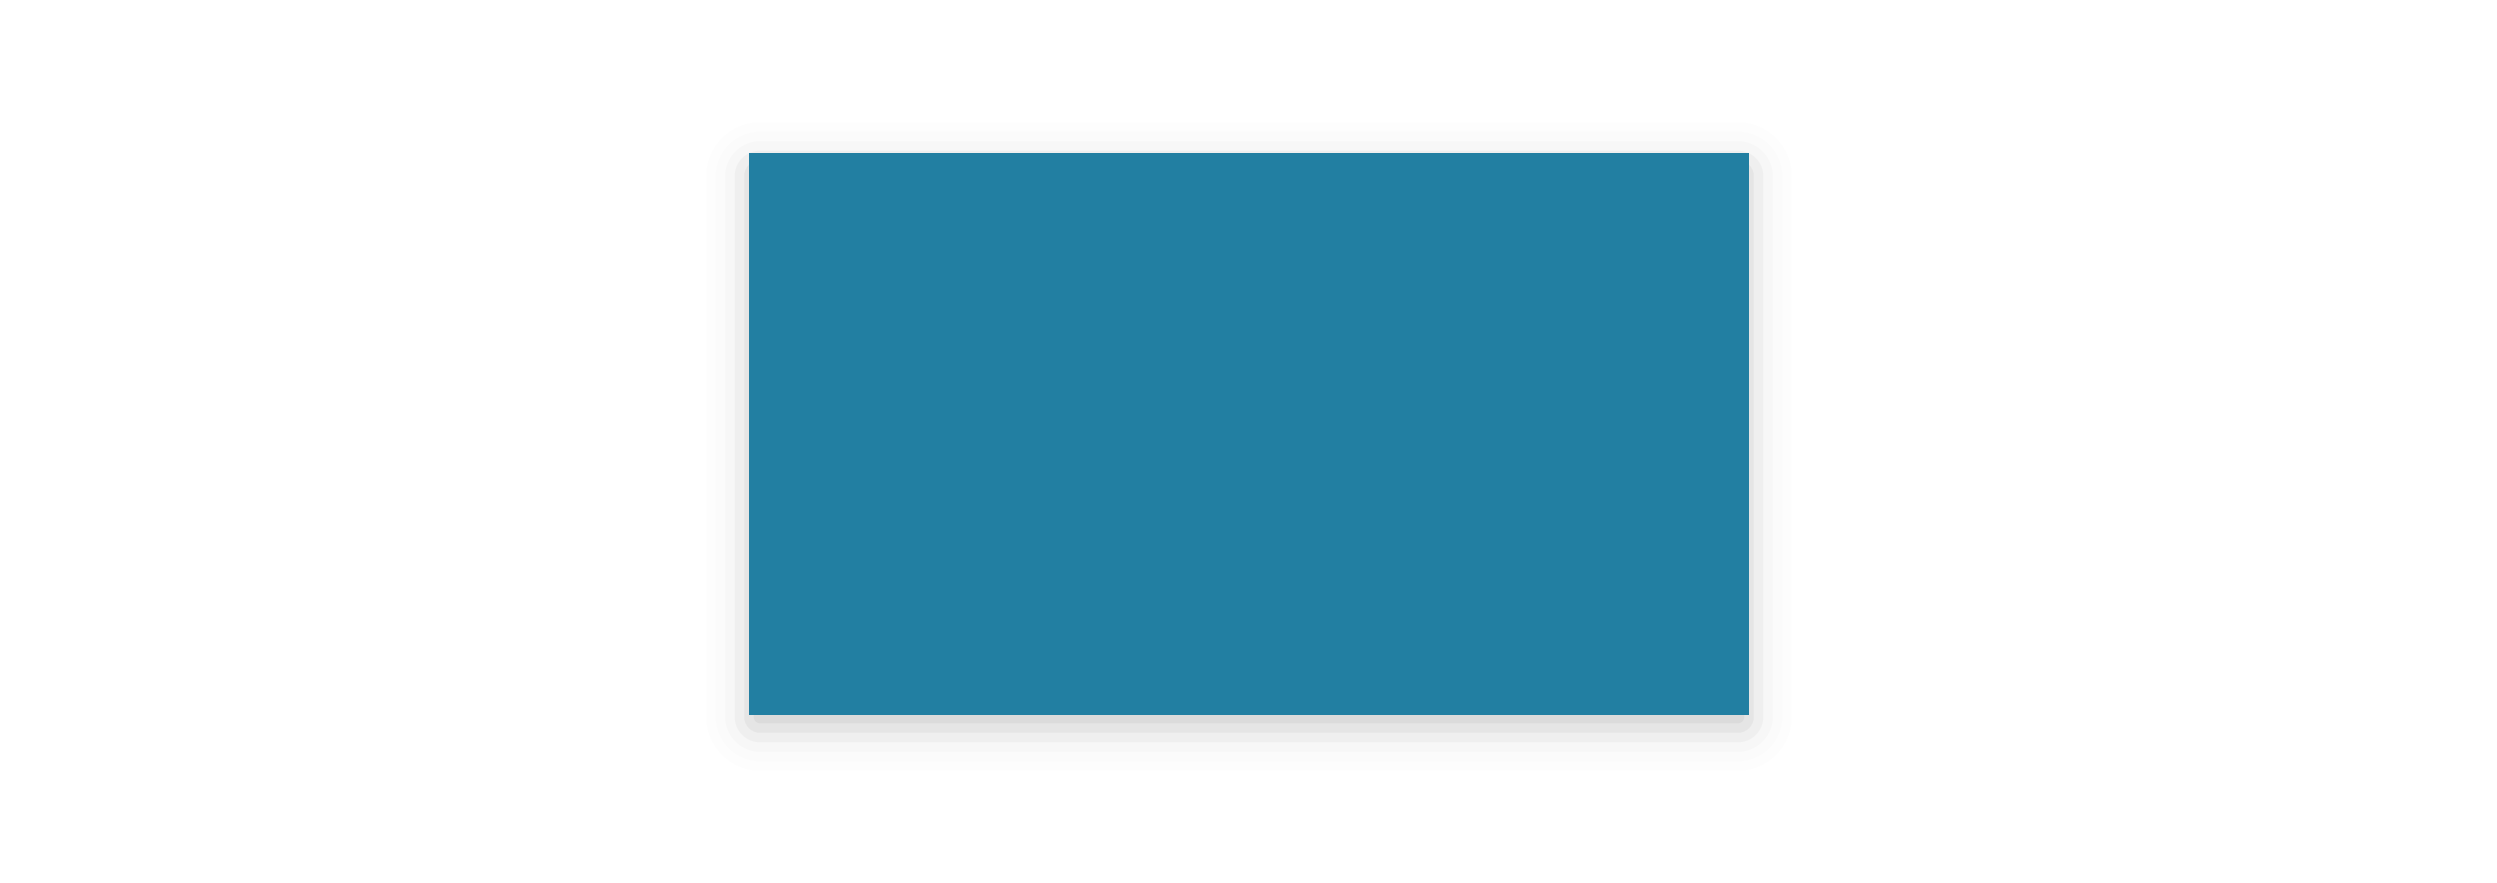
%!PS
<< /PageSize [2497 883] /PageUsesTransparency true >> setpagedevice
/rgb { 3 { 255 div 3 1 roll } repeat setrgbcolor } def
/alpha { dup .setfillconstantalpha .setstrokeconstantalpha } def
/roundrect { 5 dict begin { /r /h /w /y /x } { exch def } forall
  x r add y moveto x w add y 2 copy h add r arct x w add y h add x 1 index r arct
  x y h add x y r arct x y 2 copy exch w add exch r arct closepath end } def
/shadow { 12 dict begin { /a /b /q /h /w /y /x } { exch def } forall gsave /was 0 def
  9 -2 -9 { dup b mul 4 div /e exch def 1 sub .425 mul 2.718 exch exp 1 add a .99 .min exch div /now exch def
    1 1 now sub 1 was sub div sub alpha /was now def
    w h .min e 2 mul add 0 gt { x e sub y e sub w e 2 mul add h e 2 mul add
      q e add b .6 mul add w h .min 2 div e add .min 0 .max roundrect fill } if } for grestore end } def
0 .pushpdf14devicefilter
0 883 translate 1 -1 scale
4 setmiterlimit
255 255 255 rgb
0 0 2497 883 rectfill
34 127 162 rgb
749 153 1000 562 rectfill
gsave
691 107 moveto 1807 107 lineto 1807 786 lineto 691 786 lineto closepath 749 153 moveto 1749 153 lineto 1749 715 lineto 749 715 lineto closepath eoclip newpath
0 0 0 rgb
749 165 1000 563 0 19 0.2 shadow
grestore
.poppdf14devicefilter showpage
